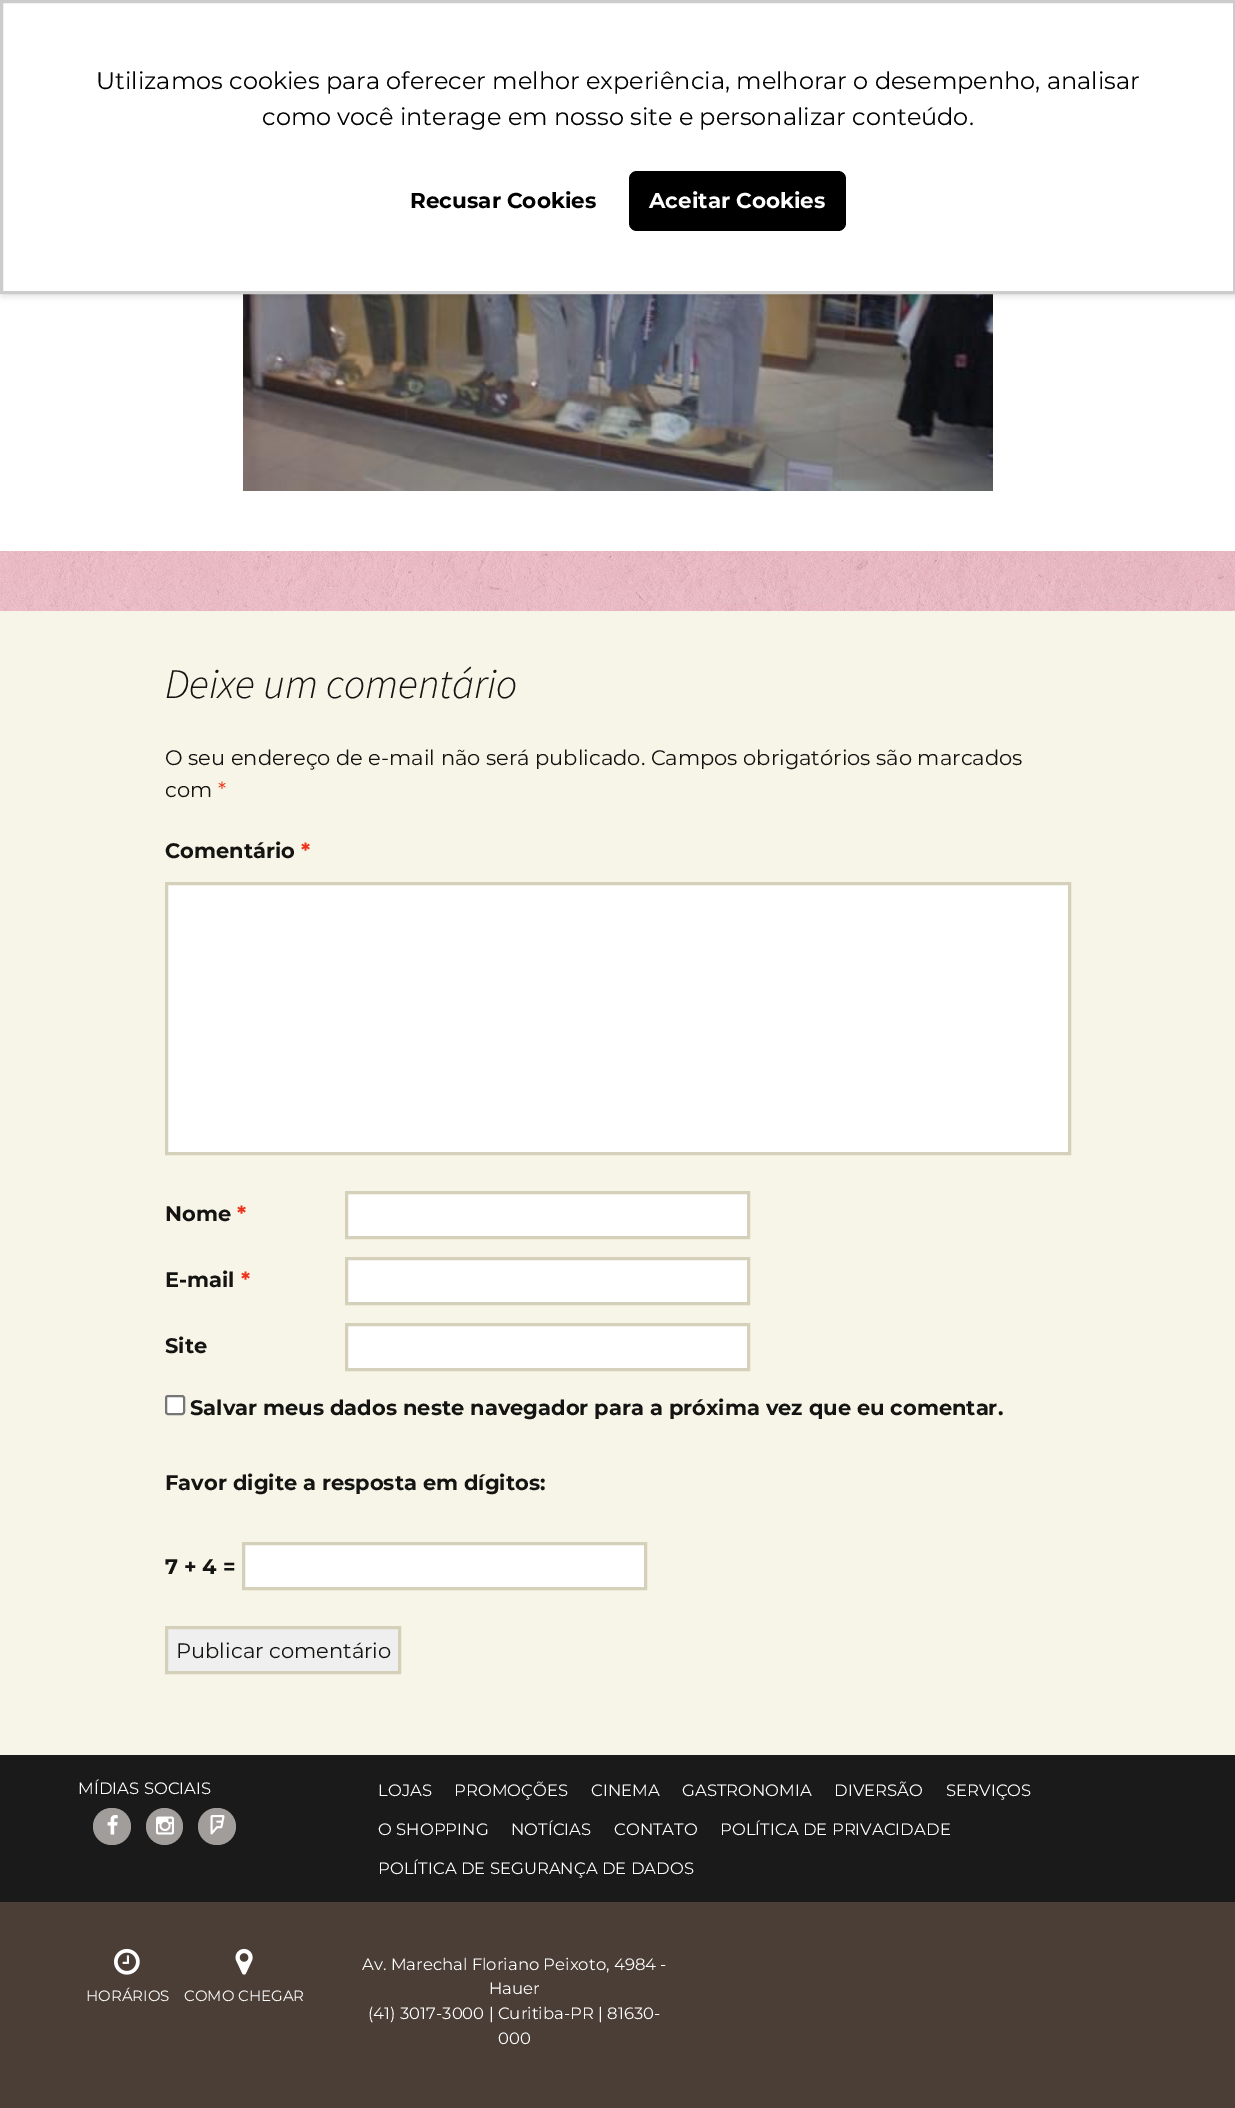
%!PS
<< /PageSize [1235 2108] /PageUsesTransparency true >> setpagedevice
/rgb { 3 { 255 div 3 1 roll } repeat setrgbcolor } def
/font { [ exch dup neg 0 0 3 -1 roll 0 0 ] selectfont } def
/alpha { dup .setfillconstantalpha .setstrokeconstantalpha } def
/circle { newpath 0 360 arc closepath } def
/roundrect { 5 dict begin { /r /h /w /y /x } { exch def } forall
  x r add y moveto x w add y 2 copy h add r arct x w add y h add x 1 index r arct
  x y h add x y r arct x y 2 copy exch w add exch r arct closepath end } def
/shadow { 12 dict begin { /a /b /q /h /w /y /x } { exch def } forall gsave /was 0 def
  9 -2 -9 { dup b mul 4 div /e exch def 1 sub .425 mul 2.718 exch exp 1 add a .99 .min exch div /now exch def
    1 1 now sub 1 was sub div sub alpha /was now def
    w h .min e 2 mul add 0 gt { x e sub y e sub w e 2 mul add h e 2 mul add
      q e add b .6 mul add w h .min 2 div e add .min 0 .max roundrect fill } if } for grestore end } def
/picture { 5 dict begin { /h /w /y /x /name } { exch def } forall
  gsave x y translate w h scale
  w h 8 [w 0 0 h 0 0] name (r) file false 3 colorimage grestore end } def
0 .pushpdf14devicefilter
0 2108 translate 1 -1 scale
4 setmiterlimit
255 255 255 rgb
0 0 1235 2108 rectfill
(img/1.rgb) 0 551 1235 60 picture
(img/2.rgb) 243 294 750 197 picture
0 0 0 rgb
2 3 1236 294 0 3 0.1 shadow
255 255 255 rgb
1.5 1.5 moveto 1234.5 1.5 lineto 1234.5 292.5 lineto 1.5 292.5 lineto closepath gsave fill grestore
204 204 204 rgb
3 setlinewidth
stroke
0 0 0 rgb
629 171 217 60 8 roundrect fill
247 245 231 rgb
0 611 1235 1144 rectfill
255 255 255 rgb
166.5 883.5 moveto 1069.5 883.5 lineto 1069.5 1153.5 lineto 166.5 1153.5 lineto closepath gsave fill grestore
212 208 186 rgb
stroke
255 255 255 rgb
346.5 1192.5 moveto 748.5 1192.5 lineto 748.5 1237.5 lineto 346.5 1237.5 lineto closepath gsave fill grestore
212 208 186 rgb
stroke
255 255 255 rgb
346.5 1258.5 moveto 748.5 1258.5 lineto 748.5 1303.5 lineto 346.5 1303.5 lineto closepath gsave fill grestore
212 208 186 rgb
stroke
255 255 255 rgb
346.5 1324.5 moveto 748.5 1324.5 lineto 748.5 1369.5 lineto 346.5 1369.5 lineto closepath gsave fill grestore
212 208 186 rgb
stroke
255 255 255 rgb
166 1396 18 18 2 roundrect gsave fill grestore
118 118 118 rgb
2 setlinewidth
stroke
255 255 255 rgb
243.5 1543.5 moveto 645.5 1543.5 lineto 645.5 1588.5 lineto 243.5 1588.5 lineto closepath gsave fill grestore
212 208 186 rgb
3 setlinewidth
stroke
239 239 239 rgb
166.5 1627.5 moveto 399.5 1627.5 lineto 399.5 1672.5 lineto 166.5 1672.5 lineto closepath gsave fill grestore
212 208 186 rgb
stroke
26 26 26 rgb
0 1755 1235 147 rectfill
161 157 155 rgb
93 1808 38 37 18.5 roundrect fill
(img/3.rgb) 107 1815 11 20 picture
164.5 1826.5 18.5 circle fill
(img/4.rgb) 156 1816 18 19 picture
198 1808 38 37 18.5 roundrect fill
(img/5.rgb) 210 1815 15 20 picture
74 62 54 rgb
0 1902 1235 206 rectfill
(img/6.rgb) 114 1948 26 27 picture
(img/7.rgb) 235 1948 18 27 picture
/Montserrat-Regular 24 font
0 0 0 rgb
96 89 moveto (Utilizamos cookies para oferecer melhor experiência, melhorar o desempenho, analisar) show
262 125 moveto (como você interage em nosso site e personalizar conteúdo.) show
/Montserrat-Bold 21.5 font
410 208 moveto (Recusar Cookies) show
255 255 255 rgb
649 208 moveto (Aceitar Cookies) show
/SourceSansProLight-LightItalic 42 font
20 20 18 rgb
165 698 moveto (Deixe um comentário) show
/Montserrat-Regular 21 font
165 765 moveto (O seu endereço de e-mail não será publicado. Campos obrigatórios são marcados) show
165 797 moveto (com) show
237 51 28 rgb
218 797 moveto (*) show
/Montserrat-Bold 21 font
20 20 18 rgb
165 858 moveto (Comentário) show
237 51 28 rgb
301 858 moveto (*) show
20 20 18 rgb
165 1221 moveto (Nome) show
237 51 28 rgb
237 1221 moveto (*) show
20 20 18 rgb
165 1287 moveto (E-mail) show
237 51 28 rgb
241 1287 moveto (*) show
20 20 18 rgb
[
  [(Site) 165 1353]
  [(Salvar meus dados neste navegador para a próxima vez que eu comentar.) 190 1415]
  [(Favor digite a resposta em dígitos:) 165 1490]
  [(7 + 4 =) 165 1574]
] { aload pop moveto show } forall
/Montserrat-Regular 21 font
176 1658 moveto (Publicar comentário) show
/Montserrat-Regular 16.5 font
255 255 255 rgb
[
  [(MÍDIAS SOCIAIS) 78 1794]
  [(LOJAS) 378 1796]
  [(PROMOÇÕES) 454 1796]
  [(CINEMA) 591 1796]
  [(GASTRONOMIA) 682 1796]
  [(DIVERSÃO) 834 1796]
  [(SERVIÇOS) 946 1796]
  [(O SHOPPING) 378 1835]
  [(NOTÍCIAS) 511 1835]
  [(CONTATO) 614 1835]
  [(POLÍTICA DE PRIVACIDADE) 720 1835]
  [(POLÍTICA DE SEGURANÇA DE DADOS) 378 1874]
] { aload pop moveto show } forall
/Montserrat-Regular 15 font
86 2001 moveto (HORÁRIOS) show
184 2001 moveto (COMO CHEGAR) show
/Montserrat-Regular 16.5 font
[
  [(Av. Marechal Floriano Peixoto, 4984 -) 362 1970]
  [(Hauer) 489 1994]
  [(\(41\) 3017-3000 | Curitiba-PR | 81630-) 368 2019]
  [(000) 498 2044]
] { aload pop moveto show } forall
.poppdf14devicefilter showpage
